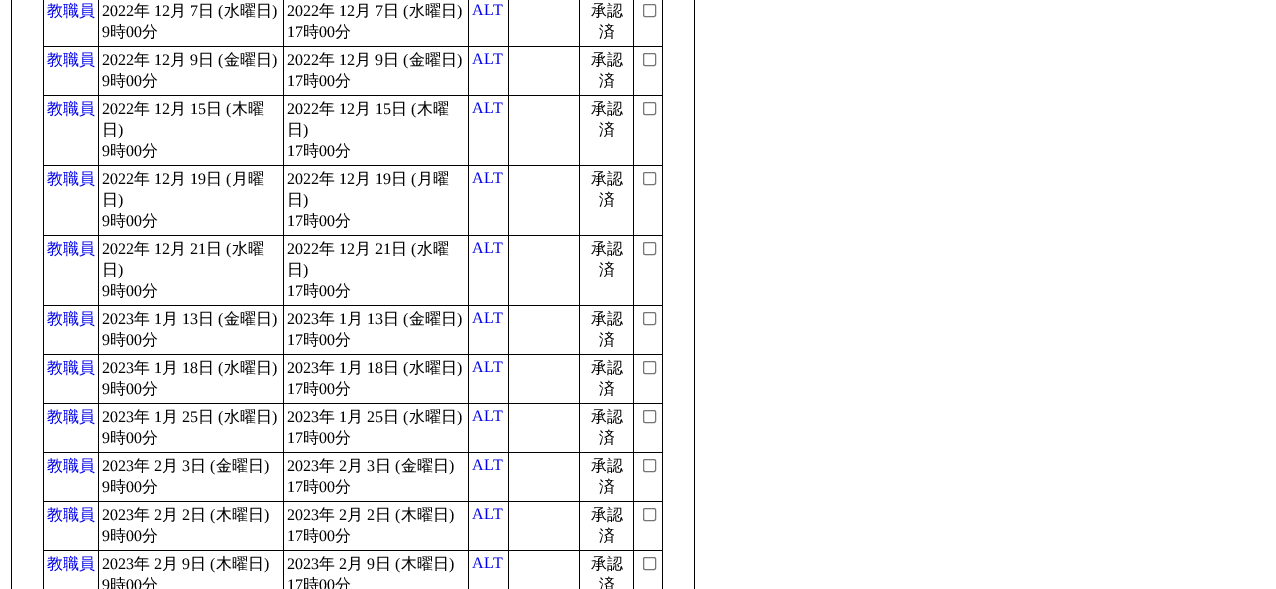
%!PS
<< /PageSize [1276 589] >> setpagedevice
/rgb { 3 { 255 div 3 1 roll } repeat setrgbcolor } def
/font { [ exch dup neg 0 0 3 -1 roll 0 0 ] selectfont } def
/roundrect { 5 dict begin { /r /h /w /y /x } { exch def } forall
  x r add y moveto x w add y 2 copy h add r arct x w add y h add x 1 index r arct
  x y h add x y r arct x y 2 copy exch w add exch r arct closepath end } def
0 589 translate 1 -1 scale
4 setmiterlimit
255 255 255 rgb
0 0 1276 589 rectfill
[
  [11 0 684 589 0 0 0]
  [12 0 682 589 255 255 255]
  [662 0 1 589 0 0 0]
  [43 0 1 589 0 0 0]
  [633 46 30 1 0 0 0]
  [633 95 30 1 0 0 0]
  [633 165 30 1 0 0 0]
  [633 235 30 1 0 0 0]
  [633 305 30 1 0 0 0]
  [633 354 30 1 0 0 0]
  [633 403 30 1 0 0 0]
  [633 452 30 1 0 0 0]
  [633 501 30 1 0 0 0]
  [633 550 30 1 0 0 0]
  [633 550 1 39 0 0 0]
  [579 550 55 1 0 0 0]
  [633 501 1 50 0 0 0]
  [579 501 55 1 0 0 0]
  [633 452 1 50 0 0 0]
  [579 452 55 1 0 0 0]
  [633 403 1 50 0 0 0]
  [579 403 55 1 0 0 0]
  [633 354 1 50 0 0 0]
  [579 354 55 1 0 0 0]
  [633 305 1 50 0 0 0]
  [579 305 55 1 0 0 0]
  [633 235 1 71 0 0 0]
  [579 235 55 1 0 0 0]
  [633 165 1 71 0 0 0]
  [579 165 55 1 0 0 0]
  [633 95 1 71 0 0 0]
  [579 95 55 1 0 0 0]
  [633 46 1 50 0 0 0]
  [579 46 55 1 0 0 0]
  [579 550 1 39 0 0 0]
  [508 550 72 1 0 0 0]
  [579 501 1 50 0 0 0]
  [508 501 72 1 0 0 0]
  [579 452 1 50 0 0 0]
  [508 452 72 1 0 0 0]
  [579 403 1 50 0 0 0]
  [508 403 72 1 0 0 0]
  [579 354 1 50 0 0 0]
  [508 354 72 1 0 0 0]
  [579 305 1 50 0 0 0]
  [508 305 72 1 0 0 0]
  [579 235 1 71 0 0 0]
  [508 235 72 1 0 0 0]
  [579 165 1 71 0 0 0]
  [508 165 72 1 0 0 0]
  [579 95 1 71 0 0 0]
  [508 95 72 1 0 0 0]
  [579 46 1 50 0 0 0]
  [508 46 72 1 0 0 0]
  [508 550 1 39 0 0 0]
  [468 550 41 1 0 0 0]
  [508 501 1 50 0 0 0]
  [468 501 41 1 0 0 0]
  [508 452 1 50 0 0 0]
  [468 452 41 1 0 0 0]
  [508 403 1 50 0 0 0]
  [468 403 41 1 0 0 0]
  [508 354 1 50 0 0 0]
  [468 354 41 1 0 0 0]
  [508 305 1 50 0 0 0]
  [468 305 41 1 0 0 0]
  [508 235 1 71 0 0 0]
  [468 235 41 1 0 0 0]
  [508 165 1 71 0 0 0]
  [468 165 41 1 0 0 0]
  [508 95 1 71 0 0 0]
  [468 95 41 1 0 0 0]
  [508 46 1 50 0 0 0]
  [468 46 41 1 0 0 0]
  [468 550 1 39 0 0 0]
  [283 550 186 1 0 0 0]
  [468 501 1 50 0 0 0]
  [283 501 186 1 0 0 0]
  [468 452 1 50 0 0 0]
  [283 452 186 1 0 0 0]
  [468 403 1 50 0 0 0]
  [283 403 186 1 0 0 0]
  [468 354 1 50 0 0 0]
  [283 354 186 1 0 0 0]
  [468 305 1 50 0 0 0]
  [283 305 186 1 0 0 0]
  [468 235 1 71 0 0 0]
  [283 235 186 1 0 0 0]
  [468 165 1 71 0 0 0]
  [283 165 186 1 0 0 0]
  [468 95 1 71 0 0 0]
  [283 95 186 1 0 0 0]
  [468 46 1 50 0 0 0]
  [283 46 186 1 0 0 0]
  [283 550 1 39 0 0 0]
  [98 550 186 1 0 0 0]
  [283 501 1 50 0 0 0]
  [98 501 186 1 0 0 0]
  [283 452 1 50 0 0 0]
  [98 452 186 1 0 0 0]
  [283 403 1 50 0 0 0]
  [98 403 186 1 0 0 0]
  [283 354 1 50 0 0 0]
  [98 354 186 1 0 0 0]
  [283 305 1 50 0 0 0]
  [98 305 186 1 0 0 0]
  [283 235 1 71 0 0 0]
  [98 235 186 1 0 0 0]
  [283 165 1 71 0 0 0]
  [98 165 186 1 0 0 0]
  [283 95 1 71 0 0 0]
  [98 95 186 1 0 0 0]
  [283 46 1 50 0 0 0]
  [98 46 186 1 0 0 0]
  [98 550 1 39 0 0 0]
  [43 550 56 1 0 0 0]
  [98 501 1 50 0 0 0]
  [43 501 56 1 0 0 0]
  [98 452 1 50 0 0 0]
  [43 452 56 1 0 0 0]
  [98 403 1 50 0 0 0]
  [43 403 56 1 0 0 0]
  [98 354 1 50 0 0 0]
  [43 354 56 1 0 0 0]
  [98 305 1 50 0 0 0]
  [43 305 56 1 0 0 0]
  [98 235 1 71 0 0 0]
  [43 235 56 1 0 0 0]
  [98 165 1 71 0 0 0]
  [43 165 56 1 0 0 0]
  [98 95 1 71 0 0 0]
  [43 95 56 1 0 0 0]
  [98 46 1 50 0 0 0]
  [43 46 56 1 0 0 0]
  [98 0 1 47 0 0 0]
  [283 0 1 47 0 0 0]
  [468 0 1 47 0 0 0]
  [508 0 1 47 0 0 0]
  [579 0 1 47 0 0 0]
  [633 0 1 47 0 0 0]
] { aload pop rgb rectfill } forall
118 118 118 rgb
643.5 4.5 12 12 1.5 roundrect stroke
643.5 53.5 12 12 1.5 roundrect stroke
643.5 102.5 12 12 1.5 roundrect stroke
643.5 172.5 12 12 1.5 roundrect stroke
643.5 242.5 12 12 1.5 roundrect stroke
643.5 312.5 12 12 1.5 roundrect stroke
643.5 361.5 12 12 1.5 roundrect stroke
643.5 410.5 12 12 1.5 roundrect stroke
643.5 459.5 12 12 1.5 roundrect stroke
643.5 508.5 12 12 1.5 roundrect stroke
643.5 557.5 12 12 1.5 roundrect stroke
/WenQuanYiZenHei-Medium 16 font
0 0 238 rgb
47 16 moveto (教職員) show
/LiberationSerif-Regular 16 font
0 0 0 rgb
102 16 moveto (2022) show
/WenQuanYiZenHei-Medium 16 font
134 16 moveto (年) show
/LiberationSerif-Regular 16 font
154 16 moveto (12) show
/WenQuanYiZenHei-Medium 16 font
170 16 moveto (月) show
/LiberationSerif-Regular 16 font
190 16 moveto (7) show
/WenQuanYiZenHei-Medium 16 font
198 16 moveto (日) show
/LiberationSerif-Regular 16 font
218 16 moveto (\() show
/WenQuanYiZenHei-Medium 16 font
224 16 moveto (水曜日) show
/LiberationSerif-Regular 16 font
272 16 moveto (\)) show
102 37 moveto (9) show
/WenQuanYiZenHei-Medium 16 font
110 37 moveto (時) show
/LiberationSerif-Regular 16 font
126 37 moveto (00) show
/WenQuanYiZenHei-Medium 16 font
142 37 moveto (分) show
/LiberationSerif-Regular 16 font
287 16 moveto (2022) show
/WenQuanYiZenHei-Medium 16 font
319 16 moveto (年) show
/LiberationSerif-Regular 16 font
339 16 moveto (12) show
/WenQuanYiZenHei-Medium 16 font
355 16 moveto (月) show
/LiberationSerif-Regular 16 font
375 16 moveto (7) show
/WenQuanYiZenHei-Medium 16 font
383 16 moveto (日) show
/LiberationSerif-Regular 16 font
403 16 moveto (\() show
/WenQuanYiZenHei-Medium 16 font
409 16 moveto (水曜日) show
/LiberationSerif-Regular 16 font
457 16 moveto (\)) show
287 37 moveto (17) show
/WenQuanYiZenHei-Medium 16 font
303 37 moveto (時) show
/LiberationSerif-Regular 16 font
319 37 moveto (00) show
/WenQuanYiZenHei-Medium 16 font
335 37 moveto (分) show
/LiberationSerif-Regular 16 font
0 0 238 rgb
472 15 moveto (ALT) show
/WenQuanYiZenHei-Medium 16 font
0 0 0 rgb
591 16 moveto (承認) show
599 37 moveto (済) show
0 0 238 rgb
47 65 moveto (教職員) show
/LiberationSerif-Regular 16 font
0 0 0 rgb
102 65 moveto (2022) show
/WenQuanYiZenHei-Medium 16 font
134 65 moveto (年) show
/LiberationSerif-Regular 16 font
154 65 moveto (12) show
/WenQuanYiZenHei-Medium 16 font
170 65 moveto (月) show
/LiberationSerif-Regular 16 font
190 65 moveto (9) show
/WenQuanYiZenHei-Medium 16 font
198 65 moveto (日) show
/LiberationSerif-Regular 16 font
218 65 moveto (\() show
/WenQuanYiZenHei-Medium 16 font
224 65 moveto (金曜日) show
/LiberationSerif-Regular 16 font
272 65 moveto (\)) show
102 86 moveto (9) show
/WenQuanYiZenHei-Medium 16 font
110 86 moveto (時) show
/LiberationSerif-Regular 16 font
126 86 moveto (00) show
/WenQuanYiZenHei-Medium 16 font
142 86 moveto (分) show
/LiberationSerif-Regular 16 font
287 65 moveto (2022) show
/WenQuanYiZenHei-Medium 16 font
319 65 moveto (年) show
/LiberationSerif-Regular 16 font
339 65 moveto (12) show
/WenQuanYiZenHei-Medium 16 font
355 65 moveto (月) show
/LiberationSerif-Regular 16 font
375 65 moveto (9) show
/WenQuanYiZenHei-Medium 16 font
383 65 moveto (日) show
/LiberationSerif-Regular 16 font
403 65 moveto (\() show
/WenQuanYiZenHei-Medium 16 font
409 65 moveto (金曜日) show
/LiberationSerif-Regular 16 font
457 65 moveto (\)) show
287 86 moveto (17) show
/WenQuanYiZenHei-Medium 16 font
303 86 moveto (時) show
/LiberationSerif-Regular 16 font
319 86 moveto (00) show
/WenQuanYiZenHei-Medium 16 font
335 86 moveto (分) show
/LiberationSerif-Regular 16 font
0 0 238 rgb
472 64 moveto (ALT) show
/WenQuanYiZenHei-Medium 16 font
0 0 0 rgb
591 65 moveto (承認) show
599 86 moveto (済) show
0 0 238 rgb
47 114 moveto (教職員) show
/LiberationSerif-Regular 16 font
0 0 0 rgb
102 114 moveto (2022) show
/WenQuanYiZenHei-Medium 16 font
134 114 moveto (年) show
/LiberationSerif-Regular 16 font
154 114 moveto (12) show
/WenQuanYiZenHei-Medium 16 font
170 114 moveto (月) show
/LiberationSerif-Regular 16 font
190 114 moveto (15) show
/WenQuanYiZenHei-Medium 16 font
206 114 moveto (日) show
/LiberationSerif-Regular 16 font
226 114 moveto (\() show
/WenQuanYiZenHei-Medium 16 font
232 114 moveto (木曜) show
102 135 moveto (日) show
/LiberationSerif-Regular 16 font
118 135 moveto (\)) show
102 156 moveto (9) show
/WenQuanYiZenHei-Medium 16 font
110 156 moveto (時) show
/LiberationSerif-Regular 16 font
126 156 moveto (00) show
/WenQuanYiZenHei-Medium 16 font
142 156 moveto (分) show
/LiberationSerif-Regular 16 font
287 114 moveto (2022) show
/WenQuanYiZenHei-Medium 16 font
319 114 moveto (年) show
/LiberationSerif-Regular 16 font
339 114 moveto (12) show
/WenQuanYiZenHei-Medium 16 font
355 114 moveto (月) show
/LiberationSerif-Regular 16 font
375 114 moveto (15) show
/WenQuanYiZenHei-Medium 16 font
391 114 moveto (日) show
/LiberationSerif-Regular 16 font
411 114 moveto (\() show
/WenQuanYiZenHei-Medium 16 font
417 114 moveto (木曜) show
287 135 moveto (日) show
/LiberationSerif-Regular 16 font
303 135 moveto (\)) show
287 156 moveto (17) show
/WenQuanYiZenHei-Medium 16 font
303 156 moveto (時) show
/LiberationSerif-Regular 16 font
319 156 moveto (00) show
/WenQuanYiZenHei-Medium 16 font
335 156 moveto (分) show
/LiberationSerif-Regular 16 font
0 0 238 rgb
472 113 moveto (ALT) show
/WenQuanYiZenHei-Medium 16 font
0 0 0 rgb
591 114 moveto (承認) show
599 135 moveto (済) show
0 0 238 rgb
47 184 moveto (教職員) show
/LiberationSerif-Regular 16 font
0 0 0 rgb
102 184 moveto (2022) show
/WenQuanYiZenHei-Medium 16 font
134 184 moveto (年) show
/LiberationSerif-Regular 16 font
154 184 moveto (12) show
/WenQuanYiZenHei-Medium 16 font
170 184 moveto (月) show
/LiberationSerif-Regular 16 font
190 184 moveto (19) show
/WenQuanYiZenHei-Medium 16 font
206 184 moveto (日) show
/LiberationSerif-Regular 16 font
226 184 moveto (\() show
/WenQuanYiZenHei-Medium 16 font
232 184 moveto (月曜) show
102 205 moveto (日) show
/LiberationSerif-Regular 16 font
118 205 moveto (\)) show
102 226 moveto (9) show
/WenQuanYiZenHei-Medium 16 font
110 226 moveto (時) show
/LiberationSerif-Regular 16 font
126 226 moveto (00) show
/WenQuanYiZenHei-Medium 16 font
142 226 moveto (分) show
/LiberationSerif-Regular 16 font
287 184 moveto (2022) show
/WenQuanYiZenHei-Medium 16 font
319 184 moveto (年) show
/LiberationSerif-Regular 16 font
339 184 moveto (12) show
/WenQuanYiZenHei-Medium 16 font
355 184 moveto (月) show
/LiberationSerif-Regular 16 font
375 184 moveto (19) show
/WenQuanYiZenHei-Medium 16 font
391 184 moveto (日) show
/LiberationSerif-Regular 16 font
411 184 moveto (\() show
/WenQuanYiZenHei-Medium 16 font
417 184 moveto (月曜) show
287 205 moveto (日) show
/LiberationSerif-Regular 16 font
303 205 moveto (\)) show
287 226 moveto (17) show
/WenQuanYiZenHei-Medium 16 font
303 226 moveto (時) show
/LiberationSerif-Regular 16 font
319 226 moveto (00) show
/WenQuanYiZenHei-Medium 16 font
335 226 moveto (分) show
/LiberationSerif-Regular 16 font
0 0 238 rgb
472 183 moveto (ALT) show
/WenQuanYiZenHei-Medium 16 font
0 0 0 rgb
591 184 moveto (承認) show
599 205 moveto (済) show
0 0 238 rgb
47 254 moveto (教職員) show
/LiberationSerif-Regular 16 font
0 0 0 rgb
102 254 moveto (2022) show
/WenQuanYiZenHei-Medium 16 font
134 254 moveto (年) show
/LiberationSerif-Regular 16 font
154 254 moveto (12) show
/WenQuanYiZenHei-Medium 16 font
170 254 moveto (月) show
/LiberationSerif-Regular 16 font
190 254 moveto (21) show
/WenQuanYiZenHei-Medium 16 font
206 254 moveto (日) show
/LiberationSerif-Regular 16 font
226 254 moveto (\() show
/WenQuanYiZenHei-Medium 16 font
232 254 moveto (水曜) show
102 275 moveto (日) show
/LiberationSerif-Regular 16 font
118 275 moveto (\)) show
102 296 moveto (9) show
/WenQuanYiZenHei-Medium 16 font
110 296 moveto (時) show
/LiberationSerif-Regular 16 font
126 296 moveto (00) show
/WenQuanYiZenHei-Medium 16 font
142 296 moveto (分) show
/LiberationSerif-Regular 16 font
287 254 moveto (2022) show
/WenQuanYiZenHei-Medium 16 font
319 254 moveto (年) show
/LiberationSerif-Regular 16 font
339 254 moveto (12) show
/WenQuanYiZenHei-Medium 16 font
355 254 moveto (月) show
/LiberationSerif-Regular 16 font
375 254 moveto (21) show
/WenQuanYiZenHei-Medium 16 font
391 254 moveto (日) show
/LiberationSerif-Regular 16 font
411 254 moveto (\() show
/WenQuanYiZenHei-Medium 16 font
417 254 moveto (水曜) show
287 275 moveto (日) show
/LiberationSerif-Regular 16 font
303 275 moveto (\)) show
287 296 moveto (17) show
/WenQuanYiZenHei-Medium 16 font
303 296 moveto (時) show
/LiberationSerif-Regular 16 font
319 296 moveto (00) show
/WenQuanYiZenHei-Medium 16 font
335 296 moveto (分) show
/LiberationSerif-Regular 16 font
0 0 238 rgb
472 253 moveto (ALT) show
/WenQuanYiZenHei-Medium 16 font
0 0 0 rgb
591 254 moveto (承認) show
599 275 moveto (済) show
0 0 238 rgb
47 324 moveto (教職員) show
/LiberationSerif-Regular 16 font
0 0 0 rgb
102 324 moveto (2023) show
/WenQuanYiZenHei-Medium 16 font
134 324 moveto (年) show
/LiberationSerif-Regular 16 font
154 324 moveto (1) show
/WenQuanYiZenHei-Medium 16 font
162 324 moveto (月) show
/LiberationSerif-Regular 16 font
182 324 moveto (13) show
/WenQuanYiZenHei-Medium 16 font
198 324 moveto (日) show
/LiberationSerif-Regular 16 font
218 324 moveto (\() show
/WenQuanYiZenHei-Medium 16 font
224 324 moveto (金曜日) show
/LiberationSerif-Regular 16 font
272 324 moveto (\)) show
102 345 moveto (9) show
/WenQuanYiZenHei-Medium 16 font
110 345 moveto (時) show
/LiberationSerif-Regular 16 font
126 345 moveto (00) show
/WenQuanYiZenHei-Medium 16 font
142 345 moveto (分) show
/LiberationSerif-Regular 16 font
287 324 moveto (2023) show
/WenQuanYiZenHei-Medium 16 font
319 324 moveto (年) show
/LiberationSerif-Regular 16 font
339 324 moveto (1) show
/WenQuanYiZenHei-Medium 16 font
347 324 moveto (月) show
/LiberationSerif-Regular 16 font
367 324 moveto (13) show
/WenQuanYiZenHei-Medium 16 font
383 324 moveto (日) show
/LiberationSerif-Regular 16 font
403 324 moveto (\() show
/WenQuanYiZenHei-Medium 16 font
409 324 moveto (金曜日) show
/LiberationSerif-Regular 16 font
457 324 moveto (\)) show
287 345 moveto (17) show
/WenQuanYiZenHei-Medium 16 font
303 345 moveto (時) show
/LiberationSerif-Regular 16 font
319 345 moveto (00) show
/WenQuanYiZenHei-Medium 16 font
335 345 moveto (分) show
/LiberationSerif-Regular 16 font
0 0 238 rgb
472 323 moveto (ALT) show
/WenQuanYiZenHei-Medium 16 font
0 0 0 rgb
591 324 moveto (承認) show
599 345 moveto (済) show
0 0 238 rgb
47 373 moveto (教職員) show
/LiberationSerif-Regular 16 font
0 0 0 rgb
102 373 moveto (2023) show
/WenQuanYiZenHei-Medium 16 font
134 373 moveto (年) show
/LiberationSerif-Regular 16 font
154 373 moveto (1) show
/WenQuanYiZenHei-Medium 16 font
162 373 moveto (月) show
/LiberationSerif-Regular 16 font
182 373 moveto (18) show
/WenQuanYiZenHei-Medium 16 font
198 373 moveto (日) show
/LiberationSerif-Regular 16 font
218 373 moveto (\() show
/WenQuanYiZenHei-Medium 16 font
224 373 moveto (水曜日) show
/LiberationSerif-Regular 16 font
272 373 moveto (\)) show
102 394 moveto (9) show
/WenQuanYiZenHei-Medium 16 font
110 394 moveto (時) show
/LiberationSerif-Regular 16 font
126 394 moveto (00) show
/WenQuanYiZenHei-Medium 16 font
142 394 moveto (分) show
/LiberationSerif-Regular 16 font
287 373 moveto (2023) show
/WenQuanYiZenHei-Medium 16 font
319 373 moveto (年) show
/LiberationSerif-Regular 16 font
339 373 moveto (1) show
/WenQuanYiZenHei-Medium 16 font
347 373 moveto (月) show
/LiberationSerif-Regular 16 font
367 373 moveto (18) show
/WenQuanYiZenHei-Medium 16 font
383 373 moveto (日) show
/LiberationSerif-Regular 16 font
403 373 moveto (\() show
/WenQuanYiZenHei-Medium 16 font
409 373 moveto (水曜日) show
/LiberationSerif-Regular 16 font
457 373 moveto (\)) show
287 394 moveto (17) show
/WenQuanYiZenHei-Medium 16 font
303 394 moveto (時) show
/LiberationSerif-Regular 16 font
319 394 moveto (00) show
/WenQuanYiZenHei-Medium 16 font
335 394 moveto (分) show
/LiberationSerif-Regular 16 font
0 0 238 rgb
472 372 moveto (ALT) show
/WenQuanYiZenHei-Medium 16 font
0 0 0 rgb
591 373 moveto (承認) show
599 394 moveto (済) show
0 0 238 rgb
47 422 moveto (教職員) show
/LiberationSerif-Regular 16 font
0 0 0 rgb
102 422 moveto (2023) show
/WenQuanYiZenHei-Medium 16 font
134 422 moveto (年) show
/LiberationSerif-Regular 16 font
154 422 moveto (1) show
/WenQuanYiZenHei-Medium 16 font
162 422 moveto (月) show
/LiberationSerif-Regular 16 font
182 422 moveto (25) show
/WenQuanYiZenHei-Medium 16 font
198 422 moveto (日) show
/LiberationSerif-Regular 16 font
218 422 moveto (\() show
/WenQuanYiZenHei-Medium 16 font
224 422 moveto (水曜日) show
/LiberationSerif-Regular 16 font
272 422 moveto (\)) show
102 443 moveto (9) show
/WenQuanYiZenHei-Medium 16 font
110 443 moveto (時) show
/LiberationSerif-Regular 16 font
126 443 moveto (00) show
/WenQuanYiZenHei-Medium 16 font
142 443 moveto (分) show
/LiberationSerif-Regular 16 font
287 422 moveto (2023) show
/WenQuanYiZenHei-Medium 16 font
319 422 moveto (年) show
/LiberationSerif-Regular 16 font
339 422 moveto (1) show
/WenQuanYiZenHei-Medium 16 font
347 422 moveto (月) show
/LiberationSerif-Regular 16 font
367 422 moveto (25) show
/WenQuanYiZenHei-Medium 16 font
383 422 moveto (日) show
/LiberationSerif-Regular 16 font
403 422 moveto (\() show
/WenQuanYiZenHei-Medium 16 font
409 422 moveto (水曜日) show
/LiberationSerif-Regular 16 font
457 422 moveto (\)) show
287 443 moveto (17) show
/WenQuanYiZenHei-Medium 16 font
303 443 moveto (時) show
/LiberationSerif-Regular 16 font
319 443 moveto (00) show
/WenQuanYiZenHei-Medium 16 font
335 443 moveto (分) show
/LiberationSerif-Regular 16 font
0 0 238 rgb
472 421 moveto (ALT) show
/WenQuanYiZenHei-Medium 16 font
0 0 0 rgb
591 422 moveto (承認) show
599 443 moveto (済) show
0 0 238 rgb
47 471 moveto (教職員) show
/LiberationSerif-Regular 16 font
0 0 0 rgb
102 471 moveto (2023) show
/WenQuanYiZenHei-Medium 16 font
134 471 moveto (年) show
/LiberationSerif-Regular 16 font
154 471 moveto (2) show
/WenQuanYiZenHei-Medium 16 font
162 471 moveto (月) show
/LiberationSerif-Regular 16 font
182 471 moveto (3) show
/WenQuanYiZenHei-Medium 16 font
190 471 moveto (日) show
/LiberationSerif-Regular 16 font
210 471 moveto (\() show
/WenQuanYiZenHei-Medium 16 font
216 471 moveto (金曜日) show
/LiberationSerif-Regular 16 font
264 471 moveto (\)) show
102 492 moveto (9) show
/WenQuanYiZenHei-Medium 16 font
110 492 moveto (時) show
/LiberationSerif-Regular 16 font
126 492 moveto (00) show
/WenQuanYiZenHei-Medium 16 font
142 492 moveto (分) show
/LiberationSerif-Regular 16 font
287 471 moveto (2023) show
/WenQuanYiZenHei-Medium 16 font
319 471 moveto (年) show
/LiberationSerif-Regular 16 font
339 471 moveto (2) show
/WenQuanYiZenHei-Medium 16 font
347 471 moveto (月) show
/LiberationSerif-Regular 16 font
367 471 moveto (3) show
/WenQuanYiZenHei-Medium 16 font
375 471 moveto (日) show
/LiberationSerif-Regular 16 font
395 471 moveto (\() show
/WenQuanYiZenHei-Medium 16 font
401 471 moveto (金曜日) show
/LiberationSerif-Regular 16 font
449 471 moveto (\)) show
287 492 moveto (17) show
/WenQuanYiZenHei-Medium 16 font
303 492 moveto (時) show
/LiberationSerif-Regular 16 font
319 492 moveto (00) show
/WenQuanYiZenHei-Medium 16 font
335 492 moveto (分) show
/LiberationSerif-Regular 16 font
0 0 238 rgb
472 470 moveto (ALT) show
/WenQuanYiZenHei-Medium 16 font
0 0 0 rgb
591 471 moveto (承認) show
599 492 moveto (済) show
0 0 238 rgb
47 520 moveto (教職員) show
/LiberationSerif-Regular 16 font
0 0 0 rgb
102 520 moveto (2023) show
/WenQuanYiZenHei-Medium 16 font
134 520 moveto (年) show
/LiberationSerif-Regular 16 font
154 520 moveto (2) show
/WenQuanYiZenHei-Medium 16 font
162 520 moveto (月) show
/LiberationSerif-Regular 16 font
182 520 moveto (2) show
/WenQuanYiZenHei-Medium 16 font
190 520 moveto (日) show
/LiberationSerif-Regular 16 font
210 520 moveto (\() show
/WenQuanYiZenHei-Medium 16 font
216 520 moveto (木曜日) show
/LiberationSerif-Regular 16 font
264 520 moveto (\)) show
102 541 moveto (9) show
/WenQuanYiZenHei-Medium 16 font
110 541 moveto (時) show
/LiberationSerif-Regular 16 font
126 541 moveto (00) show
/WenQuanYiZenHei-Medium 16 font
142 541 moveto (分) show
/LiberationSerif-Regular 16 font
287 520 moveto (2023) show
/WenQuanYiZenHei-Medium 16 font
319 520 moveto (年) show
/LiberationSerif-Regular 16 font
339 520 moveto (2) show
/WenQuanYiZenHei-Medium 16 font
347 520 moveto (月) show
/LiberationSerif-Regular 16 font
367 520 moveto (2) show
/WenQuanYiZenHei-Medium 16 font
375 520 moveto (日) show
/LiberationSerif-Regular 16 font
395 520 moveto (\() show
/WenQuanYiZenHei-Medium 16 font
401 520 moveto (木曜日) show
/LiberationSerif-Regular 16 font
449 520 moveto (\)) show
287 541 moveto (17) show
/WenQuanYiZenHei-Medium 16 font
303 541 moveto (時) show
/LiberationSerif-Regular 16 font
319 541 moveto (00) show
/WenQuanYiZenHei-Medium 16 font
335 541 moveto (分) show
/LiberationSerif-Regular 16 font
0 0 238 rgb
472 519 moveto (ALT) show
/WenQuanYiZenHei-Medium 16 font
0 0 0 rgb
591 520 moveto (承認) show
599 541 moveto (済) show
0 0 238 rgb
47 569 moveto (教職員) show
/LiberationSerif-Regular 16 font
0 0 0 rgb
102 569 moveto (2023) show
/WenQuanYiZenHei-Medium 16 font
134 569 moveto (年) show
/LiberationSerif-Regular 16 font
154 569 moveto (2) show
/WenQuanYiZenHei-Medium 16 font
162 569 moveto (月) show
/LiberationSerif-Regular 16 font
182 569 moveto (9) show
/WenQuanYiZenHei-Medium 16 font
190 569 moveto (日) show
/LiberationSerif-Regular 16 font
210 569 moveto (\() show
/WenQuanYiZenHei-Medium 16 font
216 569 moveto (木曜日) show
/LiberationSerif-Regular 16 font
264 569 moveto (\)) show
102 590 moveto (9) show
/WenQuanYiZenHei-Medium 16 font
110 590 moveto (時) show
/LiberationSerif-Regular 16 font
126 590 moveto (00) show
/WenQuanYiZenHei-Medium 16 font
142 590 moveto (分) show
/LiberationSerif-Regular 16 font
287 569 moveto (2023) show
/WenQuanYiZenHei-Medium 16 font
319 569 moveto (年) show
/LiberationSerif-Regular 16 font
339 569 moveto (2) show
/WenQuanYiZenHei-Medium 16 font
347 569 moveto (月) show
/LiberationSerif-Regular 16 font
367 569 moveto (9) show
/WenQuanYiZenHei-Medium 16 font
375 569 moveto (日) show
/LiberationSerif-Regular 16 font
395 569 moveto (\() show
/WenQuanYiZenHei-Medium 16 font
401 569 moveto (木曜日) show
/LiberationSerif-Regular 16 font
449 569 moveto (\)) show
287 590 moveto (17) show
/WenQuanYiZenHei-Medium 16 font
303 590 moveto (時) show
/LiberationSerif-Regular 16 font
319 590 moveto (00) show
/WenQuanYiZenHei-Medium 16 font
335 590 moveto (分) show
/LiberationSerif-Regular 16 font
0 0 238 rgb
472 568 moveto (ALT) show
/WenQuanYiZenHei-Medium 16 font
0 0 0 rgb
591 569 moveto (承認) show
599 590 moveto (済) show
showpage
